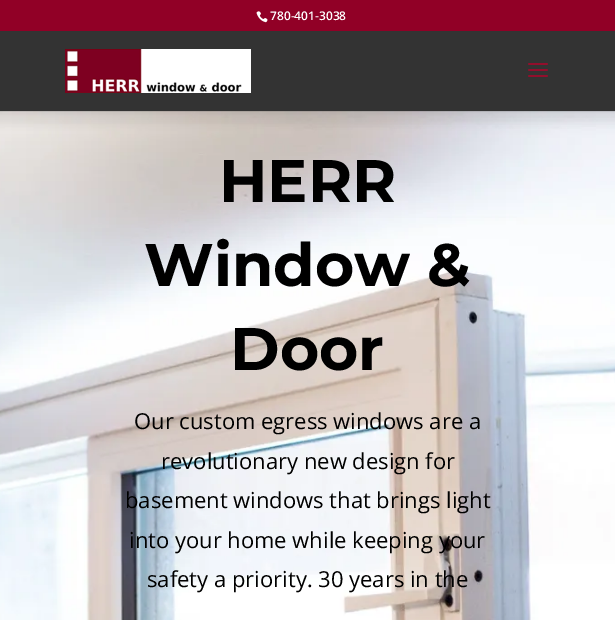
%!PS
<< /PageSize [615 620] /PageUsesTransparency true >> setpagedevice
/rgb { 3 { 255 div 3 1 roll } repeat setrgbcolor } def
/font { [ exch dup neg 0 0 3 -1 roll 0 0 ] selectfont } def
/alpha { dup .setfillconstantalpha .setstrokeconstantalpha } def
/picture { 5 dict begin { /h /w /y /x /name } { exch def } forall
  gsave x y translate w h scale
  w h 8 [w 0 0 h 0 0] name (r) file false 3 colorimage grestore end } def
0 .pushpdf14devicefilter
0 620 translate 1 -1 scale
4 setmiterlimit
255 255 255 rgb
0 0 615 620 rectfill
145 0 38 rgb
0 0 615 31 rectfill
(img/1.rgb) 256 11 12 12 picture
(img/4.rgb) 0 111 615 509 picture
0.1 alpha
0 0 0 rgb
0 111 615 1 rectfill
1 alpha
51 51 51 rgb
0 31 615 80 rectfill
(img/2.rgb) 65 49 186 44 picture
(img/3.rgb) 528 63 20 14 picture
/OpenSans-SemiBold 12 font
255 255 255 rgb
270 20 moveto (780-401-3038) show
/Montserrat-Bold 60 font
0 0 0 rgb
[
  [(HERR) 219 202]
  [(Window &) 144 286]
  [(Door) 230 370]
] { aload pop moveto show } forall
/OpenSans-Regular 22 font
[
  [(Our custom egress windows are a) 134 429]
  [(revolutionary new design for) 161 469]
  [(basement windows that brings light) 125 508]
  [(into your home while keeping your) 129 548]
  [(safety a priority. 30 years in the) 147 587]
] { aload pop moveto show } forall
.poppdf14devicefilter showpage
